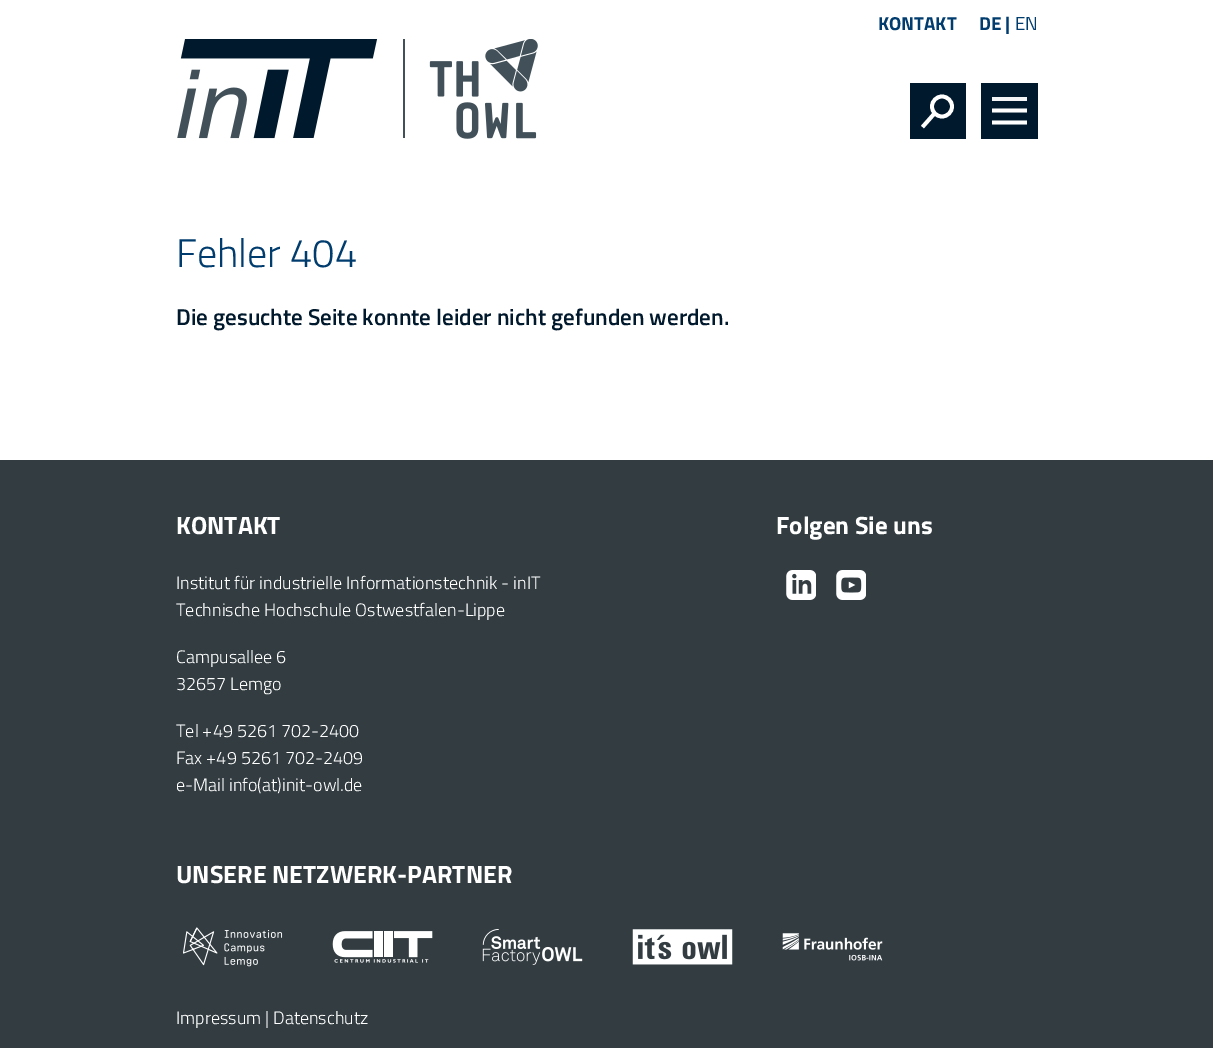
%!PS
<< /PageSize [1213 1048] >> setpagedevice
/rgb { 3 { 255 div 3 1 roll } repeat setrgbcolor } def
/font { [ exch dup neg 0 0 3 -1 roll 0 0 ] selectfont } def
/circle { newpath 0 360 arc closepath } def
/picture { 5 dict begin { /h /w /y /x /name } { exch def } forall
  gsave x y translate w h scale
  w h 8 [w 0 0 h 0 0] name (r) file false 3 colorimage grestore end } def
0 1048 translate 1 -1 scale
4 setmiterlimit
255 255 255 rgb
0 0 1213 1048 rectfill
(img/1.rgb) 177 39 361 100 picture
0 25 45 rgb
910 83 56 56 rectfill
255 255 255 rgb
3.8 setlinewidth
942 106.5 10 circle stroke
934 114 moveto 922.5 127 lineto stroke
0 25 45 rgb
981 83 57 56 rectfill
242 244 245 rgb
992 97 35 4 rectfill
255 255 255 rgb
992 110.5 moveto 1027 110.5 lineto 992 122.5 moveto 1027 122.5 lineto stroke
50 60 65 rgb
0 460 1213 588 rectfill
(img/2.rgb) 786 570 30 30 picture
(img/3.rgb) 836 570 30 30 picture
(img/4.rgb) 183 927 100 40 picture
(img/5.rgb) 332 931 101 32 picture
(img/6.rgb) 482 929 101 36 picture
(img/7.rgb) 632 929 101 36 picture
(img/8.rgb) 782 933 101 28 picture
/TitilliumWeb-Bold 18.75 font
0 60 110 rgb
878 30 moveto (KONTAKT) show
979 30 moveto (DE |) show
/TitilliumWeb-Regular 18.75 font
1015 30 moveto (EN) show
/TitilliumWeb-Light 40 font
176 267 moveto (Fehler 404) show
/TitilliumWeb-SemiBold 23 font
1 25 44 rgb
176 325 moveto (Die gesuchte Seite konnte leider nicht gefunden werden.) show
/TitilliumWeb-Bold 25 font
255 255 255 rgb
176 534 moveto (KONTAKT) show
/TitilliumWeb-Light 18 font
[
  [(Institut für industrielle Informationstechnik - inIT) 176 589]
  [(Technische Hochschule Ostwestfalen-Lippe) 176 616]
  [(Campusallee 6) 176 663]
  [(32657 Lemgo) 176 690]
  [(Tel +49 5261 702-2400) 176 737]
  [(Fax +49 5261 702-2409) 176 764]
  [(e-Mail info\(at\)init-owl.de) 176 791]
] { aload pop moveto show } forall
/TitilliumWeb-Bold 25 font
776 534 moveto (Folgen Sie uns) show
176 883 moveto (UNSERE NETZWERK-PARTNER) show
/TitilliumWeb-Light 18 font
176 1024 moveto (Impressum | Datenschutz) show
showpage
